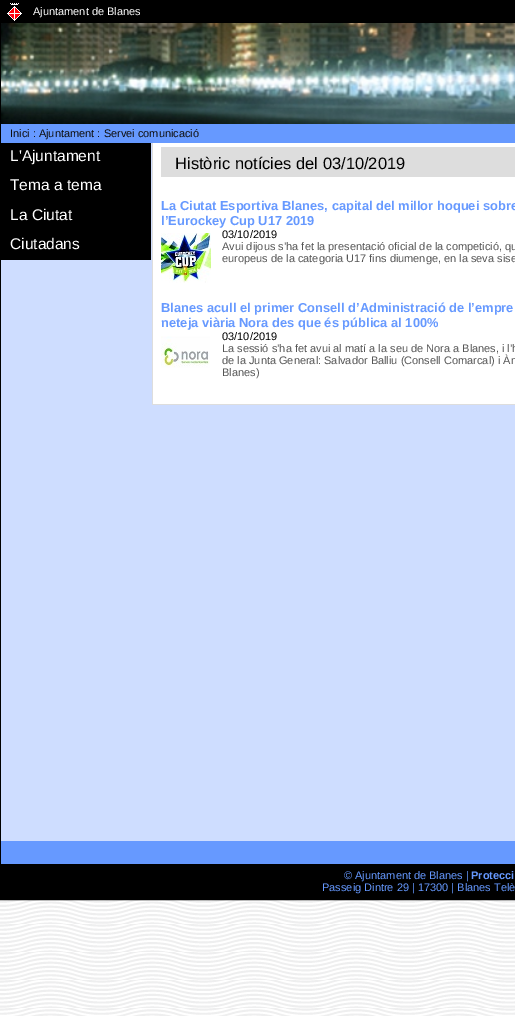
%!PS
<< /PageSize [515 1016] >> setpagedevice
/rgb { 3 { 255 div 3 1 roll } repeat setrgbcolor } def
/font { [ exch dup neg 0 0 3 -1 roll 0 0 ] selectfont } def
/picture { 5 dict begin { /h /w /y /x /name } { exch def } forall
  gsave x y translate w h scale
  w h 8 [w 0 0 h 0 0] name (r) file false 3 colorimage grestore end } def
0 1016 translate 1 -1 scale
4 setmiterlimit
255 255 255 rgb
0 0 515 1016 rectfill
(img/1.rgb) 0 900 515 116 picture
0 0 0 rgb
0.5 0.5 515 899 rectstroke
1 1 514 22 rectfill
(img/2.rgb) 7 3 15 18 picture
102 153 255 rgb
1 124 514 19 rectfill
(img/3.rgb) 1 23 514 101 picture
[
  [1 143 514 698 206 221 255]
  [1 143 150 117 0 0 0]
  [153 143 362 261 255 255 255]
  [152 404 363 1 221 221 221]
  [152 143 1 262 221 221 221]
  [161 147 354 30 221 221 221]
] { aload pop rgb rectfill } forall
(img/4.rgb) 161 233 50 50 picture
(img/5.rgb) 161 336 49 32 picture
102 153 255 rgb
1 841 514 23 rectfill
0 0 0 rgb
1 864 514 35 rectfill
/LiberationSans-Regular 11 font
255 255 255 rgb
33 15 moveto (Ajuntament de Blanes) show
15 15 15 rgb
10 137 moveto (Inici : Ajuntament : Servei comunicació) show
/LiberationSans-Regular 15.5 font
255 255 255 rgb
[
  [(L'Ajuntament) 10 161]
  [(Tema a tema) 10 190]
  [(La Ciutat) 10 220]
  [(Ciutadans) 10 249]
] { aload pop moveto show } forall
/LiberationSans-Regular 16.5 font
0 0 0 rgb
175 169 moveto (Històric notícies del 03/10/2019) show
/LiberationSans-Bold 12.9 font
102 153 255 rgb
161 210 moveto (La Ciutat Esportiva Blanes, capital del millor hoquei sobre) show
161 225 moveto (l’Eurockey Cup U17 2019) show
/LiberationSans-Regular 11 font
0 0 0 rgb
222 238 moveto (03/10/2019) show
85 85 85 rgb
222 250 moveto (Avui dijous s’ha fet la presentació oficial de la competició, qu) show
222 262 moveto (europeus de la categoria U17 fins diumenge, en la seva sise) show
/LiberationSans-Bold 12.9 font
102 153 255 rgb
161 312 moveto (Blanes acull el primer Consell d’Administració de l’empre) show
161 327 moveto (neteja viària Nora des que és pública al 100%) show
/LiberationSans-Regular 11 font
0 0 0 rgb
222 340 moveto (03/10/2019) show
85 85 85 rgb
[
  [(La sessió s’ha fet avui al matí a la seu de Nora a Blanes, i l’h) 222 352]
  [(de la Junta General: Salvador Balliu \(Consell Comarcal\) i Àn) 222 364]
  [(Blanes\)) 222 376]
] { aload pop moveto show } forall
102 153 255 rgb
344 879 moveto (© Ajuntament de Blanes |) show
/LiberationSans-Bold 11 font
471 879 moveto (Protecci) show
/LiberationSans-Regular 11 font
322 891 moveto (Passeig Dintre 29 | 17300 | Blanes Telè) show
showpage
